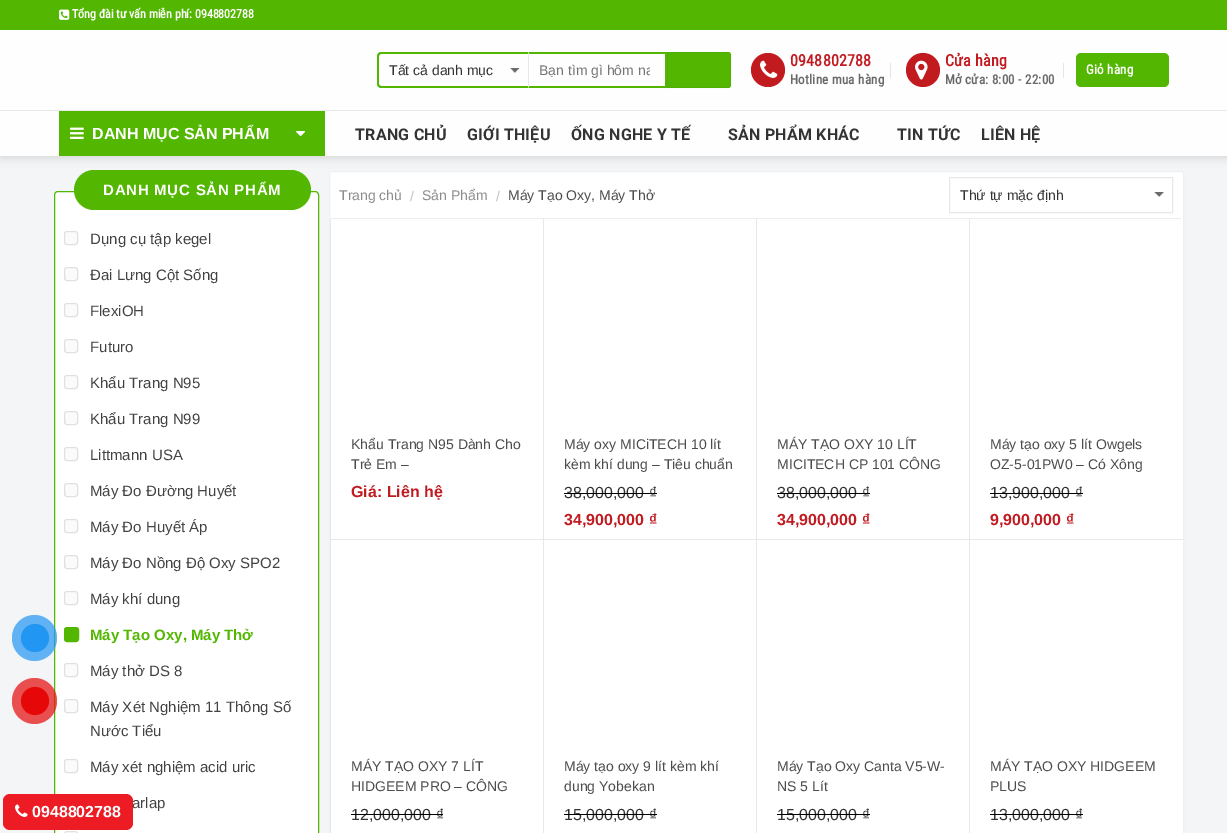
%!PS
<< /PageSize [1227 833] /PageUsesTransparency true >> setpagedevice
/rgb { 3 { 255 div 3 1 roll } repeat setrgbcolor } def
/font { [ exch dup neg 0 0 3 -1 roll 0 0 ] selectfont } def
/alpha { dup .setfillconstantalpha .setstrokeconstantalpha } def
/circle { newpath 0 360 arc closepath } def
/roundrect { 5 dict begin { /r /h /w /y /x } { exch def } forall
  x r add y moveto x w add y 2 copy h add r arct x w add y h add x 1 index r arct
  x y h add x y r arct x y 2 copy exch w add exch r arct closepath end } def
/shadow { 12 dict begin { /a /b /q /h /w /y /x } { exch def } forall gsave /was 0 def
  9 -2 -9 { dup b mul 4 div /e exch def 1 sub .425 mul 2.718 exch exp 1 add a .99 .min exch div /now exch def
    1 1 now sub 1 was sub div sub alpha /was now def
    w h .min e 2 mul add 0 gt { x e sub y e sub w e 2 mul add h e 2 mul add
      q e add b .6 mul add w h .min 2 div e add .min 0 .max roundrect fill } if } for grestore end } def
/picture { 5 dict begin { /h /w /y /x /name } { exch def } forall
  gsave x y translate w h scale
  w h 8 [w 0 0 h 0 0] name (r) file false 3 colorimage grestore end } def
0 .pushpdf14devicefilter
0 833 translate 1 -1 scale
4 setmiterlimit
243 245 247 rgb
0 0 1227 833 rectfill
255 255 255 rgb
54.5 191.5 264 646 3.5 roundrect gsave fill grestore
83 183 2 rgb
stroke
0.7 alpha
33 150 243 rgb
12 615 45 46 22.5 roundrect fill
1 alpha
35 638 14 circle fill
0.7 alpha
230 8 8 rgb
12 678 45 46 22.5 roundrect fill
1 alpha
35 701 14 circle fill
83 183 2 rgb
74 170 237 40 20 roundrect fill
255 255 255 rgb
329.5 171.5 854 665 2.5 roundrect gsave fill grestore
236 242 244 rgb
stroke
0 0 0 rgb
1 1 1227 156 0 5 0.15 shadow
254 254 254 rgb
0 30 1227 126 rectfill
83 183 2 rgb
0 0 1227 30 rectfill
(img/1.rgb) 59 9 11 11 picture
(img/2.rgb) 510 68 10 5 picture
381 52 moveto 528 52 lineto 528 88 lineto 381 88 lineto 379 88 377 86 377 84 curveto 377 56 lineto 377 54 379 52 381 52 curveto closepath 381 54 moveto 528 54 lineto 528 86 lineto 381 86 lineto 380 86 379 85 379 84 curveto 379 56 lineto 379 55 380 54 381 54 curveto closepath eofill
528 52 moveto 667 52 lineto 665 54 lineto 529 54 lineto closepath fill
665 52 2 36 rectfill
667 88 moveto 528 88 lineto 529 86 lineto 665 86 lineto closepath fill
232 232 232 rgb
528 88 moveto 528 52 lineto 529 54 lineto 529 86 lineto closepath fill
83 183 2 rgb
667 52 moveto 728 52 lineto 729.5 52 731 53.5 731 55 curveto 731 85 lineto 731 86.5 729.5 88 728 88 curveto 667 88 lineto closepath fill
0.05 alpha
0 0 0 rgb
667.5 52.5 63 35 rectstroke
1 alpha
193 26 31 rgb
768 70 17 circle fill
(img/3.rgb) 760 60 18 18 picture
229 229 229 rgb
890 63 1 15 rectfill
193 26 31 rgb
923 70 17 circle fill
(img/4.rgb) 915 60 13 20 picture
83 183 2 rgb
1076 53 93 34 5 roundrect fill
[
  [1063 63 1 15 229 229 229]
  [0 110 1227 1 232 232 232]
  [59 111 266 45 83 183 2]
] { aload pop rgb rectfill } forall
(img/5.rgb) 70 127 14 12 picture
(img/6.rgb) 296 131 10 6 picture
251 251 251 rgb
64.5 231.5 13 13 2.5 roundrect gsave fill grestore
224 224 224 rgb
stroke
251 251 251 rgb
64.5 267.5 13 13 2.5 roundrect gsave fill grestore
224 224 224 rgb
stroke
251 251 251 rgb
64.5 303.5 13 13 2.5 roundrect gsave fill grestore
224 224 224 rgb
stroke
251 251 251 rgb
64.5 339.5 13 13 2.5 roundrect gsave fill grestore
224 224 224 rgb
stroke
251 251 251 rgb
64.5 375.5 13 13 2.5 roundrect gsave fill grestore
224 224 224 rgb
stroke
251 251 251 rgb
64.5 411.5 13 13 2.5 roundrect gsave fill grestore
224 224 224 rgb
stroke
251 251 251 rgb
64.5 447.5 13 13 2.5 roundrect gsave fill grestore
224 224 224 rgb
stroke
251 251 251 rgb
64.5 483.5 13 13 2.5 roundrect gsave fill grestore
224 224 224 rgb
stroke
251 251 251 rgb
64.5 519.5 13 13 2.5 roundrect gsave fill grestore
224 224 224 rgb
stroke
251 251 251 rgb
64.5 555.5 13 13 2.5 roundrect gsave fill grestore
224 224 224 rgb
stroke
251 251 251 rgb
64.5 591.5 13 13 2.5 roundrect gsave fill grestore
224 224 224 rgb
stroke
83 183 2 rgb
64.5 627.5 14 14 2.5 roundrect gsave fill grestore
stroke
251 251 251 rgb
64.5 663.5 13 13 2.5 roundrect gsave fill grestore
224 224 224 rgb
stroke
251 251 251 rgb
64.5 699.5 13 13 2.5 roundrect gsave fill grestore
224 224 224 rgb
stroke
251 251 251 rgb
64.5 759.5 13 13 2.5 roundrect gsave fill grestore
224 224 224 rgb
stroke
251 251 251 rgb
64.5 831.5 13 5 2.5 roundrect gsave fill grestore
224 224 224 rgb
stroke
236 236 236 rgb
331 218 850 1 rectfill
(img/7.rgb) 1154 192 10 5 picture
232 232 232 rgb
949.5 177.5 223 35 rectstroke
[
  [330 539 853 1 232 232 232]
  [330 219 1 614 232 232 232]
  [543 219 1 614 232 232 232]
  [756 219 1 614 232 232 232]
  [969 219 1 614 232 232 232]
] { aload pop rgb rectfill } forall
/RobotoCondensed-Bold 12 font
255 255 255 rgb
72 18 moveto (Tổng đài tư vấn miễn phí: 0948802788) show
/LiberationSans-Regular 14 font
51 51 51 rgb
389 75 moveto (Tất cả danh mục) show
gsave
539 62 111 16 rectclip
117 117 117 rgb
539 75 moveto (Bạn tìm gì hôm na) show
grestore
/RobotoCondensed-Bold 16 font
193 26 32 rgb
790 66 moveto 0.25 0 (0948802788) ashow
/RobotoCondensed-Bold 13 font
105 105 105 rgb
790 84 moveto 0.25 0 (Hotline mua hàng) ashow
/RobotoCondensed-Bold 16 font
193 26 32 rgb
945 66 moveto 0.25 0 (Cửa hàng) ashow
/RobotoCondensed-Bold 13 font
105 105 105 rgb
945 84 moveto 0.25 0 (Mở cửa: 8:00 - 22:00) ashow
255 255 255 rgb
1086 74 moveto 0.25 0 (Giỏ hàng) ashow
/LiberationSans-Bold 16 font
92 139 moveto (DANH MỤC SẢN PHẨM) show
/Roboto-Bold 16 font
51 51 51 rgb
355 140 moveto 0.25 0 (TRANG CHỦ) ashow
467 140 moveto 0.25 0 (GIỚI THIỆU) ashow
571 140 moveto 0.25 0 (ỐNG NGHE Y TẾ) ashow
728 140 moveto 0.25 0 (SẢN PHẨM KHÁC) ashow
897 140 moveto 0.25 0 (TIN TỨC) ashow
981 140 moveto 0.25 0 (LIÊN HỆ) ashow
/LiberationSans-Bold 15 font
255 255 255 rgb
103 195 moveto 0.75 0 (DANH MỤC SẢN PHẨM) ashow
/LiberationSans-Regular 15 font
66 66 66 rgb
[
  [(Dụng cụ tập kegel) 90 244]
  [(Đai Lưng Cột Sống) 90 280]
  [(FlexiOH) 90 316]
  [(Futuro) 90 352]
  [(Khẩu Trang N95) 90 388]
  [(Khẩu Trang N99) 90 424]
  [(Littmann USA) 90 460]
  [(Máy Đo Đường Huyết) 90 496]
  [(Máy Đo Huyết Áp) 90 532]
  [(Máy Đo Nồng Độ Oxy SPO2) 90 568]
  [(Máy khí dung) 90 604]
] { aload pop moveto show } forall
/LiberationSans-Bold 15 font
83 183 2 rgb
90 640 moveto (Máy Tạo Oxy, Máy Thở) show
/LiberationSans-Regular 15 font
66 66 66 rgb
[
  [(Máy thở DS 8) 90 676]
  [(Máy Xét Nghiệm 11 Thông Số) 90 712]
  [(Nước Tiểu) 90 736]
  [(Máy xét nghiệm acid uric) 90 772]
  [(arlap) 132 808]
] { aload pop moveto show } forall
/LiberationSans-Regular 14 font
140 140 140 rgb
339 200 moveto (Trang chủ) show
192 192 192 rgb
410 201 moveto (/) show
140 140 140 rgb
422 200 moveto (Sản Phẩm) show
192 192 192 rgb
496 201 moveto (/) show
76 76 76 rgb
508 200 moveto (Máy Tạo Oxy, Máy Thở) show
51 51 51 rgb
960 200 moveto (Thứ tự mặc định) show
76 76 76 rgb
351 449 moveto (Khẩu Trang N95 Dành Cho) show
351 469 moveto (Trẻ Em –) show
/LiberationSans-Bold 16 font
193 26 32 rgb
351 497 moveto (Giá: Liên hệ) show
/LiberationSans-Regular 14 font
76 76 76 rgb
564 449 moveto (Máy oxy MICiTECH 10 lít) show
564 469 moveto (kèm khí dung – Tiêu chuẩn) show
/LiberationSans-Regular 16 font
51 51 51 rgb
564 498 moveto (38,000,000 ₫) show
0 0 0 rgb
564 493 93 1 rectfill
/LiberationSans-Bold 16 font
193 26 32 rgb
564 525 moveto (34,900,000 ₫) show
/LiberationSans-Regular 14 font
76 76 76 rgb
777 449 moveto (MÁY TẠO OXY 10 LÍT) show
777 469 moveto (MICITECH CP 101 CÔNG) show
/LiberationSans-Regular 16 font
51 51 51 rgb
777 498 moveto (38,000,000 ₫) show
0 0 0 rgb
777 493 93 1 rectfill
/LiberationSans-Bold 16 font
193 26 32 rgb
777 525 moveto (34,900,000 ₫) show
/LiberationSans-Regular 14 font
76 76 76 rgb
990 449 moveto (Máy tạo oxy 5 lít Owgels) show
990 469 moveto (OZ-5-01PW0 – Có Xông) show
/LiberationSans-Regular 16 font
51 51 51 rgb
990 498 moveto (13,900,000 ₫) show
0 0 0 rgb
990 493 93 1 rectfill
/LiberationSans-Bold 16 font
193 26 32 rgb
990 525 moveto (9,900,000 ₫) show
/LiberationSans-Regular 14 font
76 76 76 rgb
351 771 moveto (MÁY TẠO OXY 7 LÍT) show
351 791 moveto (HIDGEEM PRO – CÔNG) show
/LiberationSans-Regular 16 font
51 51 51 rgb
351 820 moveto (12,000,000 ₫) show
0 0 0 rgb
351 814 92 1 rectfill
/LiberationSans-Regular 14 font
76 76 76 rgb
564 771 moveto (Máy tạo oxy 9 lít kèm khí) show
564 791 moveto (dung Yobekan) show
/LiberationSans-Regular 16 font
51 51 51 rgb
564 820 moveto (15,000,000 ₫) show
0 0 0 rgb
564 814 93 1 rectfill
/LiberationSans-Regular 14 font
76 76 76 rgb
777 771 moveto (Máy Tạo Oxy Canta V5-W-) show
777 791 moveto (NS 5 Lít) show
/LiberationSans-Regular 16 font
51 51 51 rgb
777 820 moveto (15,000,000 ₫) show
0 0 0 rgb
777 814 93 1 rectfill
/LiberationSans-Regular 14 font
76 76 76 rgb
990 771 moveto (MÁY TẠO OXY HIDGEEM) show
990 791 moveto (PLUS) show
/LiberationSans-Regular 16 font
51 51 51 rgb
990 820 moveto (13,000,000 ₫) show
0 0 0 rgb
990 814 93 1 rectfill
237 28 36 rgb
3 794 130 36 7 roundrect fill
(img/8.rgb) 15 804 13 13 picture
/LiberationSans-Bold 16 font
255 255 255 rgb
32 817 moveto (0948802788) show
.poppdf14devicefilter showpage
